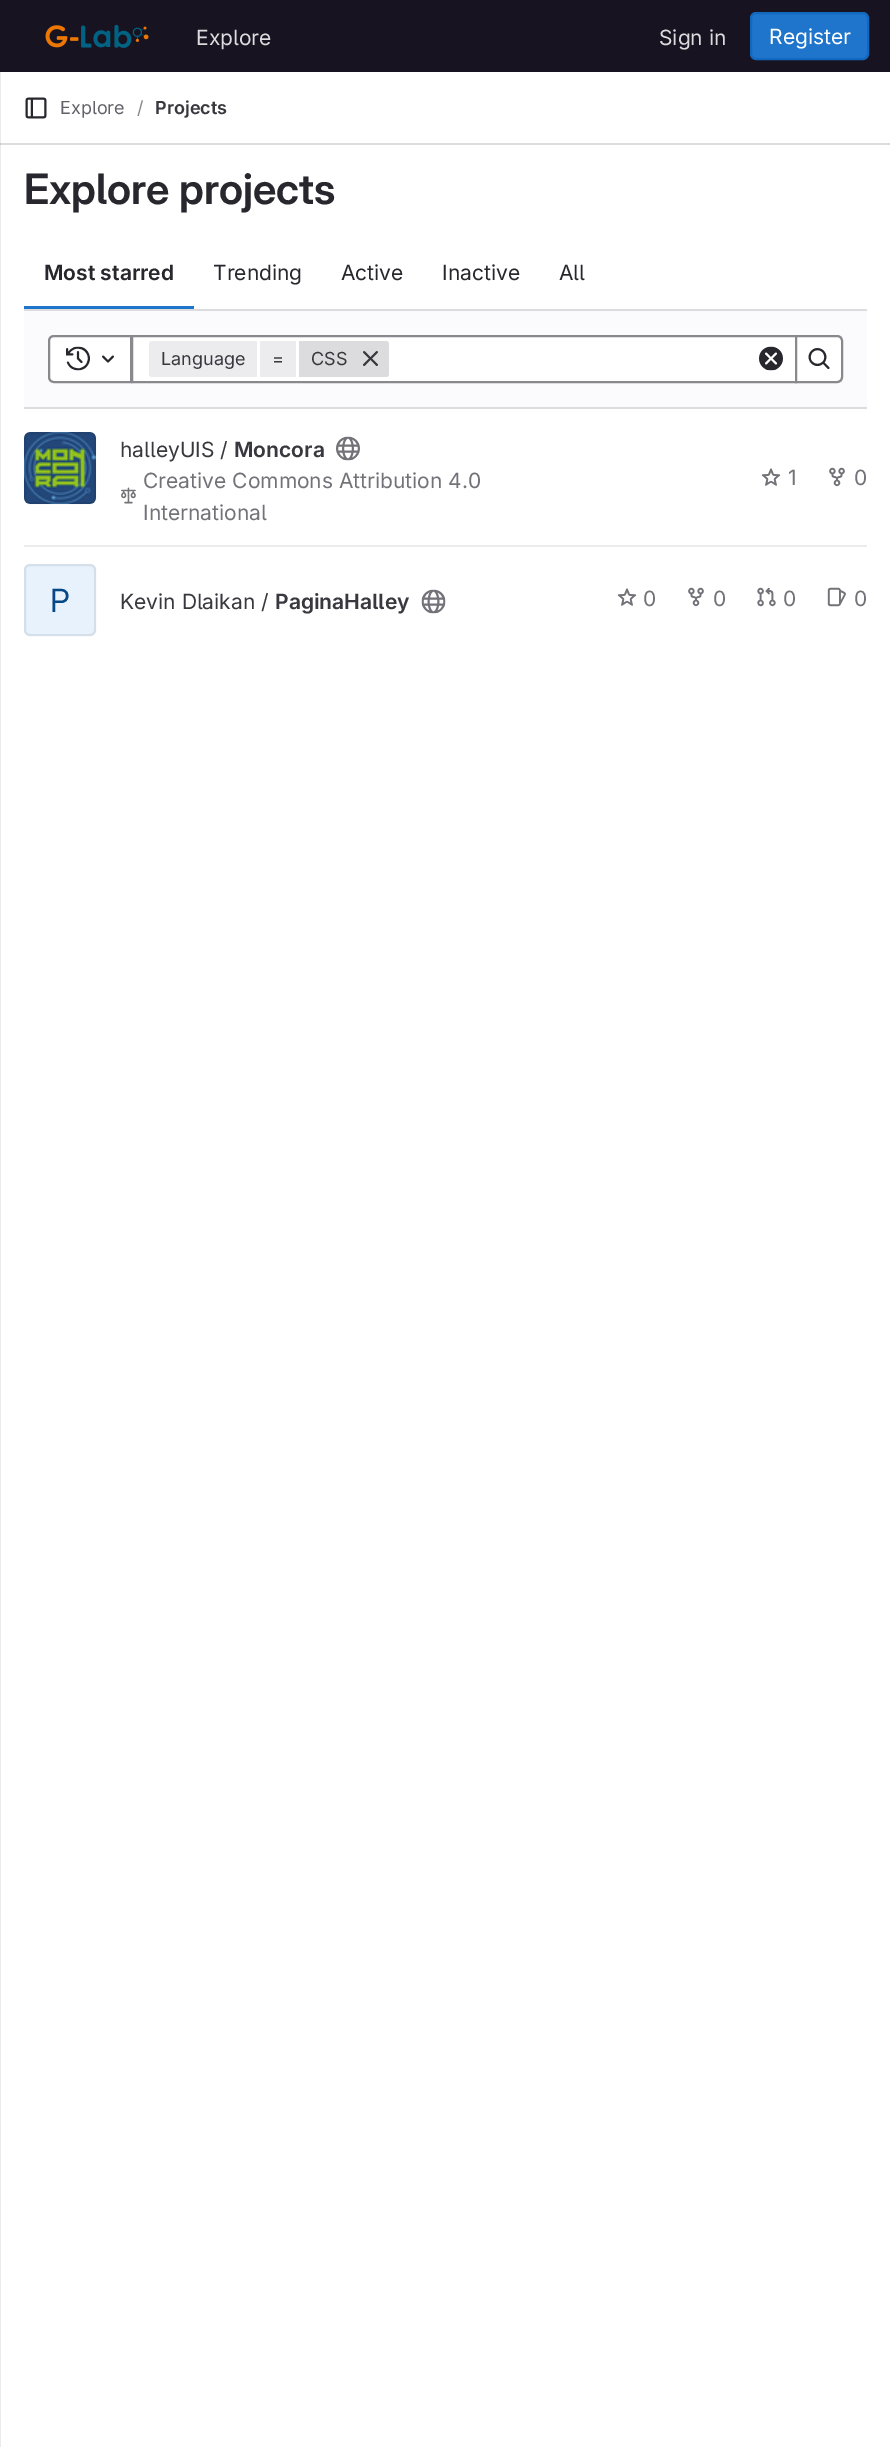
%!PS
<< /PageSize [890 2447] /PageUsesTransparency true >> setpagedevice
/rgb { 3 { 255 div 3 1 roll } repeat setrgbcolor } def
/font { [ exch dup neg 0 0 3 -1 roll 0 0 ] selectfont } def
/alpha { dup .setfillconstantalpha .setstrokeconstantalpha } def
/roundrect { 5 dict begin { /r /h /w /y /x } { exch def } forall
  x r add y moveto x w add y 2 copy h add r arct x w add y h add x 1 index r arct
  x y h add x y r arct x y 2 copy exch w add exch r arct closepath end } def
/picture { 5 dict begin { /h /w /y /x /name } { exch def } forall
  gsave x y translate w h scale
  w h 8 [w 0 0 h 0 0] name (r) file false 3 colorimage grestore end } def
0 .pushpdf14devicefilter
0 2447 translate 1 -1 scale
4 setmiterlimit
255 255 255 rgb
0 0 890 2447 rectfill
235 235 235 rgb
0 72 1 2375 rectfill
23 19 33 rgb
0 0 890 72 rectfill
(img/1.rgb) 45 24 104 24 picture
31 117 203 rgb
751 13 117 46 5 roundrect gsave fill grestore
16 104 191 rgb
2 setlinewidth
stroke
220 220 222 rgb
0 143 890 2 rectfill
203 203 205 rgb
0 143 1 2 rectfill
(img/2.rgb) 25 97 22 22 picture
[
  [24 306 170 3 31 117 203]
  [24 311 843 96 251 250 253]
  [24 309 843 2 220 220 222]
  [24 407 843 2 220 220 222]
] { aload pop rgb rectfill } forall
255 255 255 rgb
132 336 moveto 796 336 lineto 796 382 lineto 132 382 lineto closepath gsave fill grestore
137 136 141 rgb
stroke
255 255 255 rgb
54 336 moveto 131 336 lineto 131 382 lineto 54 382 lineto 51 382 49 380 49 377 curveto 49 341 lineto 49 338 51 336 54 336 curveto closepath gsave fill grestore
137 136 141 rgb
stroke
(img/3.rgb) 66 346 24 25 picture
(img/4.rgb) 102 355 12 8 picture
236 236 239 rgb
152 341 moveto 257 341 lineto 257 377 lineto 152 377 lineto 150.5 377 149 375.5 149 374 curveto 149 344 lineto 149 342.5 150.5 341 152 341 curveto closepath fill
260 341 36 36 rectfill
220 220 222 rgb
299 341 moveto 386 341 lineto 387.5 341 389 342.5 389 344 curveto 389 374 lineto 389 375.5 387.5 377 386 377 curveto 299 377 lineto closepath fill
(img/5.rgb) 363 351 15 15 picture
(img/6.rgb) 759 346 24 25 picture
255 255 255 rgb
796 336 moveto 837 336 lineto 840 336 842 338 842 341 curveto 842 377 lineto 842 380 840 382 837 382 curveto 796 382 lineto closepath gsave fill grestore
137 136 141 rgb
stroke
(img/7.rgb) 808 348 22 21 picture
236 236 239 rgb
24 545 843 2 rectfill
(img/8.rgb) 24 432 72 72 picture
0.08 alpha
5 5 6 rgb
25 433 70 70 5 roundrect stroke
1 alpha
(img/9.rgb) 336 436 24 25 picture
(img/10.rgb) 121 487 15 17 picture
(img/11.rgb) 761 468 20 18 picture
(img/12.rgb) 829 467 16 20 picture
231 242 252 rgb
24 564 72 72 6 roundrect fill
0.08 alpha
5 5 6 rgb
25 565 70 70 5 roundrect stroke
1 alpha
(img/13.rgb) 421 589 25 25 picture
(img/14.rgb) 617 588 20 18 picture
(img/15.rgb) 688 587 16 20 picture
(img/16.rgb) 757 587 19 20 picture
(img/17.rgb) 827 587 19 20 picture
/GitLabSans-Regular 21 font
220 220 222 rgb
196 45 moveto (Explore) show
659 45 moveto (Sign in) show
255 255 255 rgb
769 44 moveto (Register) show
/GitLabSans-Regular 18 font
98 97 104 rgb
60 114 moveto (Explore) show
137 136 141 rgb
137 114 moveto (/) show
/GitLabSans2-SemiBold 18 font
58 56 63 rgb
155 114 moveto (Projects) show
/GitLabSans-SemiBold 42 font
40 39 45 rgb
24 204 moveto (Explore projects) show
/GitLabSans2-SemiBold 21 font
44 280 moveto (Most starred) show
/GitLabSans-Regular 21 font
[
  [(Trending) 213 280]
  [(Active) 341 280]
  [(Inactive) 442 280]
  [(All) 559 280]
] { aload pop moveto show } forall
/GitLabSans-Regular 18 font
58 56 63 rgb
[
  [(Language) 161 365]
  [(=) 272 365]
  [(CSS) 311 365]
] { aload pop moveto show } forall
/GitLabSans-Regular 21 font
120 457 moveto (halleyUIS /) show
/GitLabSans2-SemiBold 21 font
234 457 moveto (Moncora) show
/GitLabSans-Regular 21 font
115 114 120 rgb
[
  [(Creative Commons Attribution 4.0) 143 488]
  [(International) 143 520]
  [(1) 788 485]
  [(0) 854 485]
] { aload pop moveto show } forall
/GitLabSans2-Regular 32 font
6 71 135 rgb
50 612 moveto (P) show
/GitLabSans-Regular 21 font
58 56 63 rgb
120 609 moveto (Kevin Dlaikan /) show
/GitLabSans2-SemiBold 21 font
275 609 moveto (PaginaHalley) show
/GitLabSans-Regular 21 font
115 114 120 rgb
[
  [(0) 643 606]
  [(0) 713 606]
  [(0) 783 606]
  [(0) 854 606]
] { aload pop moveto show } forall
.poppdf14devicefilter showpage
